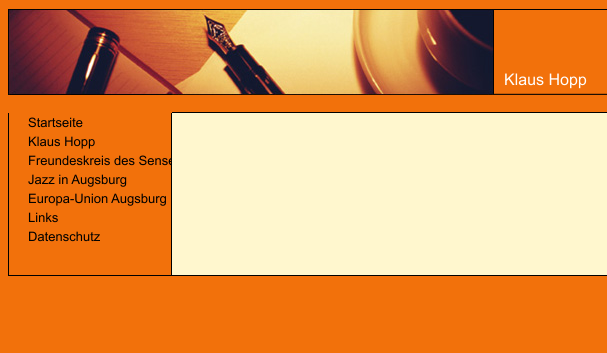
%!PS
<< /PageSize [607 353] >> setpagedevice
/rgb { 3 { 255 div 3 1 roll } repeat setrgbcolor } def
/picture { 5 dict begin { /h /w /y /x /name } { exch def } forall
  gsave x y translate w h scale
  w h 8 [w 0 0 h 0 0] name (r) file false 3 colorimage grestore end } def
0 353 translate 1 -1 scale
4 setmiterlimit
242 113 11 rgb
0 0 607 353 rectfill
(img/1.rgb) 8 9 486 86 picture
0 0 0 rgb
494 9 113 1 rectfill
(img/2.rgb) 494 73 113 22 picture
172 112 435 1 rectfill
(img/3.rgb) 8 113 164 19 picture
(img/4.rgb) 8 132 164 19 picture
(img/5.rgb) 8 151 164 19 picture
(img/6.rgb) 8 170 164 19 picture
(img/7.rgb) 8 189 164 19 picture
(img/8.rgb) 8 208 164 19 picture
(img/9.rgb) 8 227 164 19 picture
255 247 206 rgb
172 113 435 133 rectfill
(img/10.rgb) 8 246 599 30 picture
showpage
